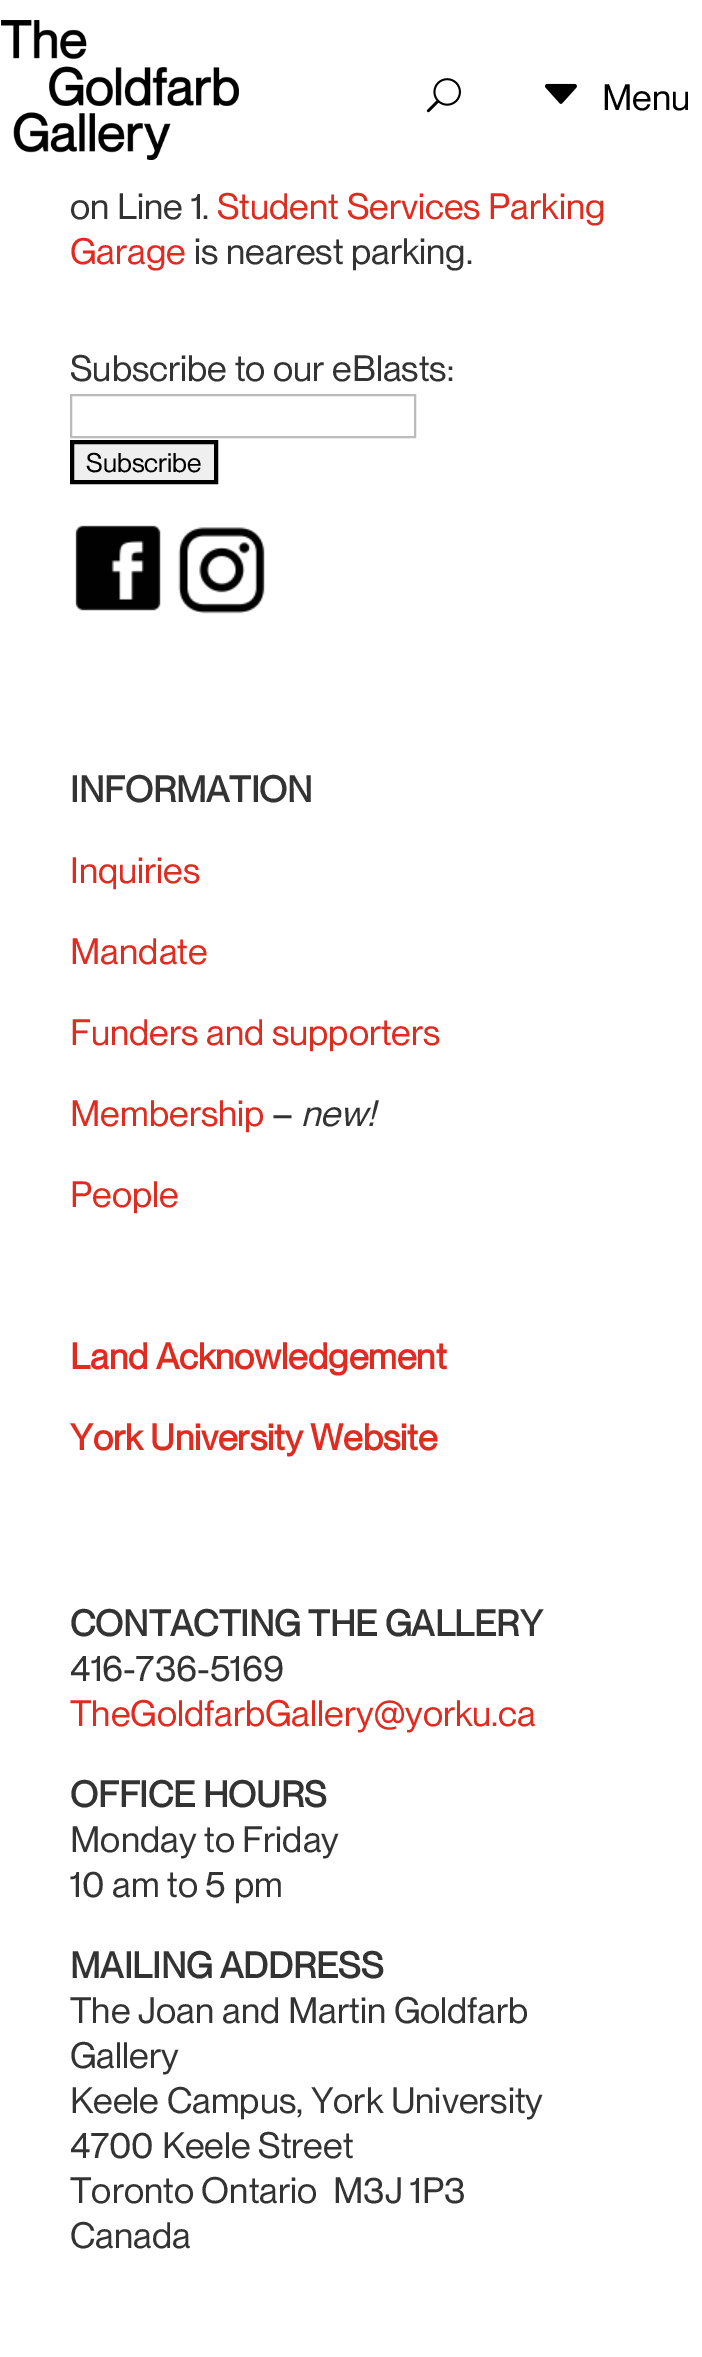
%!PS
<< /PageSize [702 2357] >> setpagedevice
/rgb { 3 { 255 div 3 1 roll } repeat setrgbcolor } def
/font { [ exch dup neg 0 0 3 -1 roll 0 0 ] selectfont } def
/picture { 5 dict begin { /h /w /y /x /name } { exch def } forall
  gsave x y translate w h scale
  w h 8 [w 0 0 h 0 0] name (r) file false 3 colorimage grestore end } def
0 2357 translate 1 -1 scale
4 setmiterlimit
255 255 255 rgb
0 0 702 2357 rectfill
(img/1.rgb) 1 20 238 140 picture
(img/2.rgb) 426 78 35 35 picture
(img/3.rgb) 545 83 32 21 picture
187 187 187 rgb
2 setlinewidth
71 395 344 42 rectstroke
239 239 239 rgb
72 442 moveto 216 442 lineto 216 482 lineto 72 482 lineto closepath gsave fill grestore
0 0 0 rgb
4 setlinewidth
stroke
(img/4.rgb) 75 525 86 86 picture
(img/5.rgb) 178 527 87 87 picture
/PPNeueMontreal-Regular 36 font
602 110 moveto (Menu) show
51 51 51 rgb
70 219 moveto (on Line 1.) show
224 43 32 rgb
217 219 moveto (Student Services Parking) show
70 264 moveto (Garage) show
51 51 51 rgb
194 264 moveto (is nearest parking.) show
70 381 moveto (Subscribe to our eBlasts:) show
/PPNeueMontreal-Regular 26.5 font
0 0 0 rgb
86 472 moveto (Subscribe) show
/PPNeueMontreal-Bold 36 font
51 51 51 rgb
70 802 moveto (INFORMATION) show
/PPNeueMontreal-Regular 36 font
224 43 32 rgb
[
  [(Inquiries) 70 883]
  [(Mandate) 70 964]
  [(Funders and supporters) 70 1045]
  [(Membership) 70 1126]
] { aload pop moveto show } forall
51 51 51 rgb
272 1126 moveto (–) show
/PPNeueMontreal-Italic 36 font
301 1126 moveto (new!) show
/PPNeueMontreal-Regular 36 font
224 43 32 rgb
70 1207 moveto (People) show
/PPNeueMontreal-Bold 36 font
70 1369 moveto (Land Acknowledgement) show
70 1450 moveto (York University Website) show
51 51 51 rgb
70 1636 moveto (CONTACTING THE GALLERY) show
/PPNeueMontreal-Regular 36 font
70 1681 moveto (416-736-5169) show
224 43 32 rgb
70 1726 moveto (TheGoldfarbGallery@yorku.ca) show
/PPNeueMontreal-Bold 36 font
51 51 51 rgb
70 1807 moveto (OFFICE HOURS) show
/PPNeueMontreal-Regular 36 font
70 1852 moveto (Monday to Friday) show
70 1897 moveto (10 am to 5 pm) show
/PPNeueMontreal-Bold 36 font
70 1978 moveto (MAILING ADDRESS) show
/PPNeueMontreal-Regular 36 font
[
  [(The Joan and Martin Goldfarb) 70 2023]
  [(Gallery) 70 2068]
  [(Keele Campus, York University) 70 2113]
  [(4700 Keele Street) 70 2158]
  [(Toronto Ontario  M3J 1P3) 70 2203]
  [(Canada) 70 2248]
] { aload pop moveto show } forall
showpage
